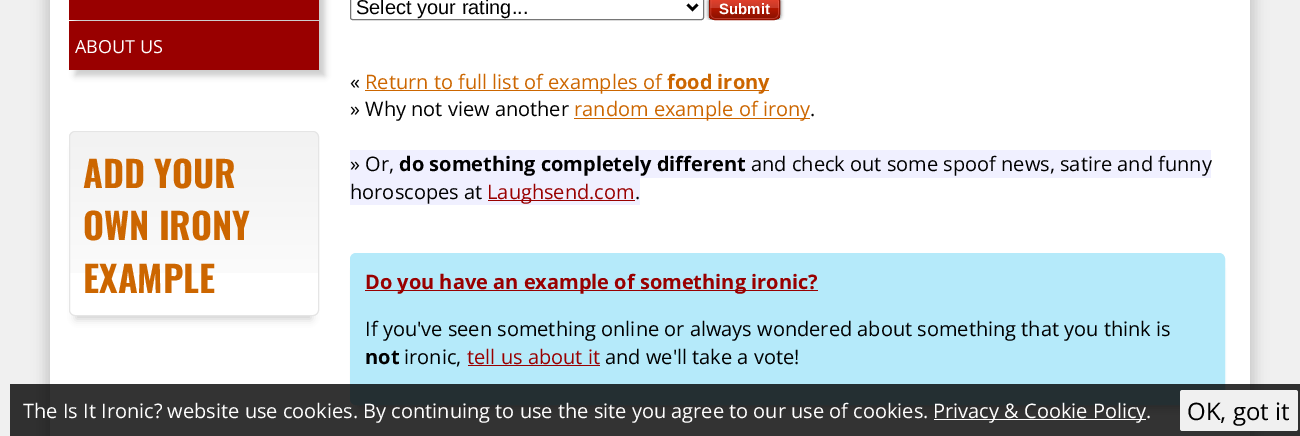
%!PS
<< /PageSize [1300 436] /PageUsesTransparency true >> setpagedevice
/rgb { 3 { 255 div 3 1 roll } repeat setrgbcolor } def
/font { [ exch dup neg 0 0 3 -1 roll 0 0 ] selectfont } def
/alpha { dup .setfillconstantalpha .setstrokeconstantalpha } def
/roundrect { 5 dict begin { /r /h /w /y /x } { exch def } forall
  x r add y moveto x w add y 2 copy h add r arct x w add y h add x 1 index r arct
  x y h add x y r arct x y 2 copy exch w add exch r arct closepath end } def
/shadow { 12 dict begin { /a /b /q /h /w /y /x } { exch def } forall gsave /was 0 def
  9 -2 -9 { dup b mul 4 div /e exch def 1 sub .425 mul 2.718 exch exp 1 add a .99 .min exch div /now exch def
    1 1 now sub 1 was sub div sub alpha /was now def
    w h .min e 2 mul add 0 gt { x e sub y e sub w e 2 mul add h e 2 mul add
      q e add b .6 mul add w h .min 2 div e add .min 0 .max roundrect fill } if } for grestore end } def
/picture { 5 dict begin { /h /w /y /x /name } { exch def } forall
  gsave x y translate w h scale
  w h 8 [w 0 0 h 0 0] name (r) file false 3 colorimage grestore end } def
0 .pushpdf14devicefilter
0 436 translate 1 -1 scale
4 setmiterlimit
240 240 240 rgb
0 0 1300 436 rectfill
204 204 204 rgb
44 -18 1187 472 0 6 1 shadow
69 -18 1187 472 0 6 1 shadow
255 255 255 rgb
50 0 1200 436 rectfill
204 204 204 rgb
75 -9 250 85 0 3 1 shadow
153 0 0 rgb
69 0 250 20 rectfill
69 21 250 49 rectfill
gsave
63 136 moveto 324 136 lineto 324 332 lineto 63 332 lineto closepath 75 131 moveto 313 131 lineto 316.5 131 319 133.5 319 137 curveto 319 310 lineto 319 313.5 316.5 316 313 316 curveto 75 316 lineto 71.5 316 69 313.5 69 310 curveto 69 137 lineto 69 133.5 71.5 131 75 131 curveto closepath eoclip newpath
204 204 204 rgb
76 149 235 170 0 4 1 shadow
grestore
(img/1.rgb) 69 132 250 141 picture
229 229 229 rgb
69.5 131.5 249 184 5.5 roundrect stroke
118 118 118 rgb
350.5 -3.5 353 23 2 roundrect stroke
0 0 0 rgb
2.5 setlinewidth
687.5 4.5 moveto 692.5 9.5 lineto 697.5 4.5 lineto stroke
gsave
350 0 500 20 rectclip
51 51 51 rgb
709 -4 71 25 6 2 1 shadow
grestore
gsave
709 -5 71 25 6 roundrect clip newpath
gsave 709 0 moveto 780 0 lineto 780 19 lineto 709 19 lineto closepath clip newpath
<< /ShadingType 2 /ColorSpace /DeviceRGB /Coords [744 -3.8 744 19] /Extend [true true] /Function << /FunctionType 3 /Domain [0 1] /Functions [<< /FunctionType 2 /Domain [0 1] /C0 [0.933 0.263 0.18] /C1 [0.776 0.224 0.161] /N 1 >> << /FunctionType 2 /Domain [0 1] /C0 [0.71 0.09 0] /C1 [0.537 0.067 0] /N 1 >>] /Bounds [0.5] /Encode [0 1 0 1] >> >> shfill grestore
grestore
0.4 alpha
255 115 100 rgb
1 setlinewidth
710.5 -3.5 68 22 4.5 roundrect stroke
1 alpha
149 17 0 rgb
709.5 -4.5 70 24 5.5 roundrect stroke
[
  [365 90 404 1 204 102 0]
  [574 118 236 1 204 102 0]
  [350 150 861 28 240 240 255]
  [350 178 290 27 240 240 255]
  [488 200 147 1 153 0 0]
] { aload pop rgb rectfill } forall
204 204 204 rgb
358 270 860 138 0 4 1 shadow
181 234 250 rgb
351.5 254.5 872 149 4.5 roundrect gsave fill grestore
3 setlinewidth
stroke
[
  [365 290 453 1 153 0 0]
  [468 365 132 1 153 0 0]
] { aload pop rgb rectfill } forall
0.8 alpha
[
  [10 384 1290 52 0 0 0]
] { aload pop rgb rectfill } forall
1 alpha
[
  [934 419 212 1 255 255 255]
] { aload pop rgb rectfill } forall
240 240 240 rgb
1180 390 118 41 2.5 roundrect fill
/OpenSans-Regular 18 font
255 255 255 rgb
75 53 moveto (ABOUT US) show
/Oswald-Bold 36 font
204 102 0 rgb
[
  [(ADD YOUR) 83 188]
  [(OWN IRONY) 83 240]
  [(EXAMPLE) 83 293]
] { aload pop moveto show } forall
/LiberationSans-Regular 20 font
0 0 0 rgb
356 14 moveto (Select your rating...) show
/LiberationSans-Bold 15 font
255 255 255 rgb
719 14 moveto (Submit) show
/OpenSans-Regular 20 font
0 0 0 rgb
350 89 moveto («) show
204 102 0 rgb
365 89 moveto (Return to full list of examples of) show
/OpenSans-Bold 20 font
667 89 moveto (food irony) show
/OpenSans-Regular 20 font
0 0 0 rgb
350 116 moveto (» Why not view another) show
204 102 0 rgb
574 116 moveto (random example of irony) show
0 0 0 rgb
810 116 moveto (.) show
350 171 moveto (» Or,) show
/OpenSans-Bold 20 font
399 171 moveto (do something completely different) show
/OpenSans-Regular 20 font
751 171 moveto (and check out some spoof news, satire and funny) show
350 199 moveto (horoscopes at) show
153 0 0 rgb
487 199 moveto (Laughsend.com) show
0 0 0 rgb
635 199 moveto (.) show
/OpenSans-Bold 20 font
153 0 0 rgb
365 289 moveto (Do you have an example of something ironic?) show
/OpenSans-Regular 20 font
0 0 0 rgb
365 336 moveto (If you've seen something online or always wondered about something that you think is) show
/OpenSans-Bold 20 font
365 364 moveto (not) show
/OpenSans-Regular 20 font
404 364 moveto (ironic,) show
153 0 0 rgb
467 364 moveto (tell us about it) show
0 0 0 rgb
605 364 moveto (and we'll take a vote!) show
255 255 255 rgb
23 418 moveto (The Is It Ironic? website use cookies. By continuing to use the site you agree to our use of cookies.) show
933 418 moveto (Privacy & Cookie Policy.) show
/OpenSans-Regular 24 font
0 0 0 rgb
1187 420 moveto (OK, got it) show
.poppdf14devicefilter showpage
